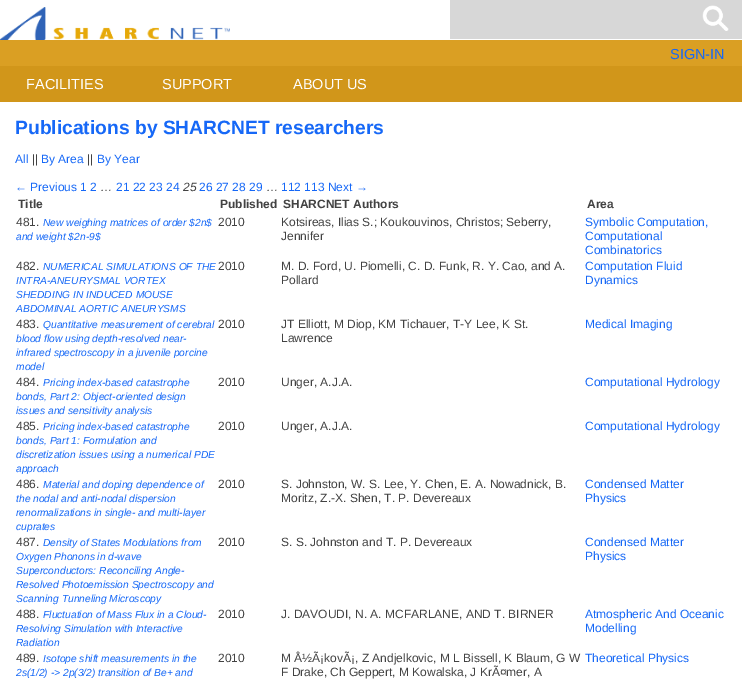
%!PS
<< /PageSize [742 680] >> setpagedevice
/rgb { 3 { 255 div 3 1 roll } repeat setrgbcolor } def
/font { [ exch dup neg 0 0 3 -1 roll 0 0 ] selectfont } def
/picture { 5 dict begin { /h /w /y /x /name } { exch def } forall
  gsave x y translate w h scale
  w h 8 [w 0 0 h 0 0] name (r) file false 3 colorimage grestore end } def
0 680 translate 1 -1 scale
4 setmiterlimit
255 255 255 rgb
0 0 742 680 rectfill
(img/1.rgb) 0 7 230 33 picture
215 215 215 rgb
450 0 292 39 rectfill
(img/2.rgb) 702 5 27 26 picture
218 159 35 rgb
0 40 742 26 rectfill
209 150 26 rgb
0 66 742 36 rectfill
/LiberationSans-Regular 14.5 font
22 104 247 rgb
670 59 moveto (SIGN-IN) show
255 255 255 rgb
[
  [(FACILITIES) 26 89]
  [(SUPPORT) 162 89]
  [(ABOUT US) 293 89]
] { aload pop moveto show } forall
/LiberationSans-Bold 19.25 font
22 104 247 rgb
15 134 moveto (Publications by SHARCNET researchers) show
/LiberationSans-Regular 12 font
15 163 moveto (All) show
66 66 66 rgb
32 163 moveto (||) show
22 104 247 rgb
41 163 moveto (By Area) show
66 66 66 rgb
87 163 moveto (||) show
22 104 247 rgb
97 163 moveto (By Year) show
15 191 moveto (← Previous 1 2) show
66 66 66 rgb
100 191 moveto (…) show
22 104 247 rgb
116 191 moveto (21 22 23 24) show
/LiberationSans-Italic 12 font
66 66 66 rgb
183 191 moveto (25) show
/LiberationSans-Regular 12 font
22 104 247 rgb
199 191 moveto (26 27 28 29) show
66 66 66 rgb
266 191 moveto (…) show
22 104 247 rgb
281 191 moveto (112 113 Next →) show
/LiberationSans-Bold 12 font
66 66 66 rgb
[
  [(Title) 18 208]
  [(Published) 220 208]
  [(SHARCNET Authors) 283 208]
  [(Area) 587 208]
] { aload pop moveto show } forall
/LiberationSans-Regular 12 font
16 226 moveto (481.) show
/LiberationSans-Italic 10.25 font
22 104 247 rgb
43 226 moveto (New weighing matrices of order $2n$) show
16 240 moveto (and weight $2n-9$) show
/LiberationSans-Regular 12 font
66 66 66 rgb
[
  [(2010) 218 226]
  [(Kotsireas, Ilias S.; Koukouvinos, Christos; Seberry,) 281 226]
  [(Jennifer) 281 240]
] { aload pop moveto show } forall
22 104 247 rgb
[
  [(Symbolic Computation,) 585 226]
  [(Computational) 585 240]
  [(Combinatorics) 585 254]
] { aload pop moveto show } forall
66 66 66 rgb
16 270 moveto (482.) show
/LiberationSans-Italic 10.25 font
22 104 247 rgb
[
  [(NUMERICAL SIMULATIONS OF THE) 43 270]
  [(INTRA-ANEURYSMAL VORTEX) 16 284]
  [(SHEDDING IN INDUCED MOUSE) 16 298]
  [(ABDOMINAL AORTIC ANEURYSMS) 16 312]
] { aload pop moveto show } forall
/LiberationSans-Regular 12 font
66 66 66 rgb
[
  [(2010) 218 270]
  [(M. D. Ford, U. Piomelli, C. D. Funk, R. Y. Cao, and A.) 281 270]
  [(Pollard) 281 284]
] { aload pop moveto show } forall
22 104 247 rgb
585 270 moveto (Computation Fluid) show
585 284 moveto (Dynamics) show
66 66 66 rgb
16 328 moveto (483.) show
/LiberationSans-Italic 10.25 font
22 104 247 rgb
[
  [(Quantitative measurement of cerebral) 43 328]
  [(blood flow using depth-resolved near-) 16 342]
  [(infrared spectroscopy in a juvenile porcine) 16 356]
  [(model) 16 370]
] { aload pop moveto show } forall
/LiberationSans-Regular 12 font
66 66 66 rgb
[
  [(2010) 218 328]
  [(JT Elliott, M Diop, KM Tichauer, T-Y Lee, K St.) 281 328]
  [(Lawrence) 281 342]
] { aload pop moveto show } forall
22 104 247 rgb
585 328 moveto (Medical Imaging) show
66 66 66 rgb
16 386 moveto (484.) show
/LiberationSans-Italic 10.25 font
22 104 247 rgb
[
  [(Pricing index-based catastrophe) 43 386]
  [(bonds, Part 2: Object-oriented design) 16 400]
  [(issues and sensitivity analysis) 16 414]
] { aload pop moveto show } forall
/LiberationSans-Regular 12 font
66 66 66 rgb
218 386 moveto (2010) show
281 386 moveto (Unger, A.J.A.) show
22 104 247 rgb
585 386 moveto (Computational Hydrology) show
66 66 66 rgb
16 430 moveto (485.) show
/LiberationSans-Italic 10.25 font
22 104 247 rgb
[
  [(Pricing index-based catastrophe) 43 430]
  [(bonds, Part 1: Formulation and) 16 444]
  [(discretization issues using a numerical PDE) 16 458]
  [(approach) 16 472]
] { aload pop moveto show } forall
/LiberationSans-Regular 12 font
66 66 66 rgb
218 430 moveto (2010) show
281 430 moveto (Unger, A.J.A.) show
22 104 247 rgb
585 430 moveto (Computational Hydrology) show
66 66 66 rgb
16 488 moveto (486.) show
/LiberationSans-Italic 10.25 font
22 104 247 rgb
[
  [(Material and doping dependence of) 43 488]
  [(the nodal and anti-nodal dispersion) 16 502]
  [(renormalizations in single- and multi-layer) 16 516]
  [(cuprates) 16 530]
] { aload pop moveto show } forall
/LiberationSans-Regular 12 font
66 66 66 rgb
[
  [(2010) 218 488]
  [(S. Johnston, W. S. Lee, Y. Chen, E. A. Nowadnick, B.) 281 488]
  [(Moritz, Z.-X. Shen, T. P. Devereaux) 281 502]
] { aload pop moveto show } forall
22 104 247 rgb
585 488 moveto (Condensed Matter) show
585 502 moveto (Physics) show
66 66 66 rgb
16 546 moveto (487.) show
/LiberationSans-Italic 10.25 font
22 104 247 rgb
[
  [(Density of States Modulations from) 43 546]
  [(Oxygen Phonons in d-wave) 16 560]
  [(Superconductors: Reconciling Angle-) 16 574]
  [(Resolved Photoemission Spectroscopy and) 16 588]
  [(Scanning Tunneling Microscopy) 16 602]
] { aload pop moveto show } forall
/LiberationSans-Regular 12 font
66 66 66 rgb
218 546 moveto (2010) show
281 546 moveto (S. S. Johnston and T. P. Devereaux) show
22 104 247 rgb
585 546 moveto (Condensed Matter) show
585 560 moveto (Physics) show
66 66 66 rgb
16 618 moveto (488.) show
/LiberationSans-Italic 10.25 font
22 104 247 rgb
[
  [(Fluctuation of Mass Flux in a Cloud-) 43 618]
  [(Resolving Simulation with Interactive) 16 632]
  [(Radiation) 16 646]
] { aload pop moveto show } forall
/LiberationSans-Regular 12 font
66 66 66 rgb
218 618 moveto (2010) show
281 618 moveto (J. DAVOUDI, N. A. MCFARLANE, AND T. BIRNER) show
22 104 247 rgb
585 618 moveto (Atmospheric And Oceanic) show
585 632 moveto (Modelling) show
66 66 66 rgb
16 662 moveto (489.) show
/LiberationSans-Italic 10.25 font
22 104 247 rgb
43 662 moveto (Isotope shift measurements in the) show
16 676 moveto (2s\(1/2\) -> 2p\(3/2\) transition of Be+ and) show
/LiberationSans-Regular 12 font
66 66 66 rgb
[
  [(2010) 218 662]
  [(M Å½Ã¡kovÃ¡, Z Andjelkovic, M L Bissell, K Blaum, G W) 281 662]
  [(F Drake, Ch Geppert, M Kowalska, J KrÃ¤mer, A) 281 676]
] { aload pop moveto show } forall
22 104 247 rgb
585 662 moveto (Theoretical Physics) show
showpage
